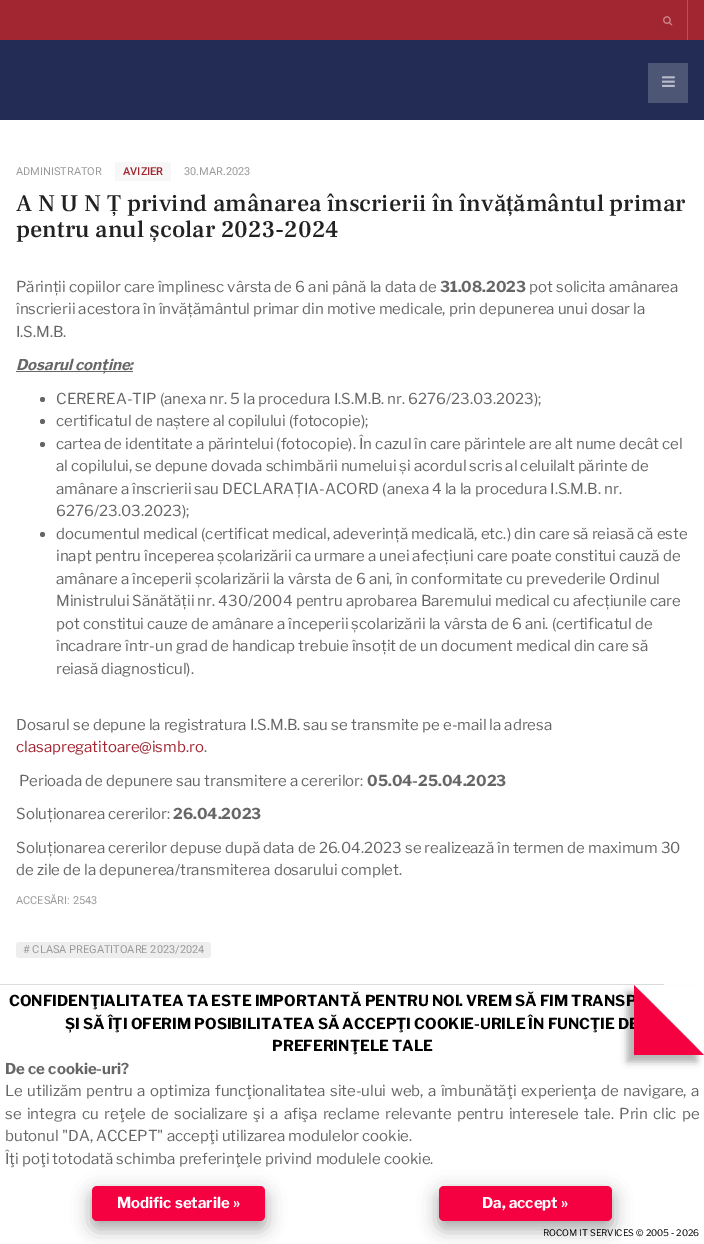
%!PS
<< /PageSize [704 1244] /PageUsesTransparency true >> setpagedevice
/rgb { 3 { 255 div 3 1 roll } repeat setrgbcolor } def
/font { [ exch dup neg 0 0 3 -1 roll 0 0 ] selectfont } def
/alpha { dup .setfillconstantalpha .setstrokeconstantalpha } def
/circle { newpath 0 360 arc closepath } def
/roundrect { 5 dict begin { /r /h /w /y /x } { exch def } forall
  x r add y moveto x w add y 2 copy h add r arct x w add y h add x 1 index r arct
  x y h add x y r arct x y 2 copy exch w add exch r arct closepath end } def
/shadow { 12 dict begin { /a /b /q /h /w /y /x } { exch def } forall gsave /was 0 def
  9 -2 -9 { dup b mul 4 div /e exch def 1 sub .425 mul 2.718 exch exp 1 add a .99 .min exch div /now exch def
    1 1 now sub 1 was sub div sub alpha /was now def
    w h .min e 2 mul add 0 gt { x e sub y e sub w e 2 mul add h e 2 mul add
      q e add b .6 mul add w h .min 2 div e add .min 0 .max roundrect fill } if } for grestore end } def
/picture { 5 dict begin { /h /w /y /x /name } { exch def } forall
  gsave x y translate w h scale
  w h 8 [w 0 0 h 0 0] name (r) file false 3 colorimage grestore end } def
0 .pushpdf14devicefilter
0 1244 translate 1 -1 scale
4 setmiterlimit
255 255 255 rgb
0 0 704 1244 rectfill
162 38 49 rgb
0 0 704 40 rectfill
181 81 90 rgb
687 0 1 40 rectfill
(img/1.rgb) 663 16 10 10 picture
34 44 84 rgb
0 40 704 80 rectfill
78 86 118 rgb
648 63 40 40 rectfill
(img/2.rgb) 662 76 13 11 picture
247 247 247 rgb
115 162 56 19 rectfill
102 102 102 rgb
16 371 117 1 rectfill
42.5 399.5 2.5 circle fill
42.5 421.5 2.5 circle fill
42.5 444.5 2.5 circle fill
42.5 534.5 2.5 circle fill
238 238 238 rgb
16 942 195 16 3 roundrect fill
221 221 221 rgb
0 984 664 1 rectfill
0 0 0 rgb
627 992 70 70 0 3.5 0.3 shadow
92 1192 173 35 5 10 0.19 shadow
92 1194 173 35 5 8 0.2 shadow
245 0 65 rgb
92 1186 173 35 5 roundrect fill
0 0 0 rgb
439 1192 173 35 5 10 0.19 shadow
439 1194 173 35 5 8 0.2 shadow
245 0 65 rgb
439 1186 173 35 5 roundrect fill
/Roboto-Regular 11 font
153 153 153 rgb
16 175 moveto (ADMINISTRATOR) show
/Roboto-Medium 11 font
162 38 49 rgb
123 175 moveto (AVIZIER) show
/Roboto-Regular 11 font
153 153 153 rgb
184 175 moveto (30.MAR.2023) show
/FrankRuhlLibre-Medium 24 font
34 34 34 rgb
16 211 moveto (A N U N Ț privind amânarea înscrierii în învățământul primar) show
16 237 moveto (pentru anul școlar 2023-2024) show
/LibreFranklin-Regular 15 font
102 102 102 rgb
16 292 moveto (Părinții copiilor care împlinesc vârsta de 6 ani până la data de) show
/LibreFranklin-Bold 15 font
440 292 moveto (31.08.2023) show
/LibreFranklin-Regular 15 font
[
  [(pot solicita amânarea) 529 292]
  [(înscrierii acestora în învățământul primar din motive medicale, prin depunerea unui dosar la) 16 314]
  [(I.S.M.B.) 16 337]
] { aload pop moveto show } forall
/LibreFranklin-BoldItalic 15 font
16 370 moveto (Dosarul conține:) show
/LibreFranklin-Regular 15 font
[
  [(CEREREA-TIP \(anexa nr. 5 la procedura I.S.M.B. nr. 6276/23.03.2023\);) 56 404]
  [(certificatul de naștere al copilului \(fotocopie\);) 56 426]
  [(cartea de identitate a părintelui \(fotocopie\). În cazul în care părintele are alt nume decât cel) 56 449]
  [(al copilului, se depune dovada schimbării numelui și acordul scris al celuilalt părinte de) 56 471]
  [(amânare a înscrierii sau DECLARAȚIA-ACORD \(anexa 4 la la procedura I.S.M.B. nr.) 56 494]
  [(6276/23.03.2023\);) 56 516]
  [(documentul medical \(certificat medical, adeverință medicală, etc.\) din care să reiasă că este) 56 539]
  [(inapt pentru începerea școlarizării ca urmare a unei afecțiuni care poate constitui cauză de) 56 561]
  [(amânare a începerii școlarizării la vârsta de 6 ani, în conformitate cu prevederile Ordinul) 56 584]
  [(Ministrului Sănătății nr. 430/2004 pentru aprobarea Baremului medical cu afecțiunile care) 56 606]
  [(pot constitui cauze de amânare a începerii școlarizării la vârsta de 6 ani. \(certificatul de) 56 629]
  [(încadrare într-un grad de handicap trebuie însoțit de un document medical din care să) 56 651]
  [(reiasă diagnosticul\).) 56 674]
  [(Dosarul se depune la registratura I.S.M.B. sau se transmite pe e-mail la adresa) 16 730]
] { aload pop moveto show } forall
162 38 49 rgb
16 752 moveto (clasapregatitoare@ismb.ro) show
102 102 102 rgb
204 752 moveto (.) show
19 786 moveto (Perioada de depunere sau transmitere a cererilor:) show
/LibreFranklin-Bold 15 font
367 786 moveto (05.04-25.04.2023) show
/LibreFranklin-Regular 15 font
16 819 moveto (Soluționarea cererilor:) show
/LibreFranklin-Bold 15 font
173 819 moveto (26.04.2023) show
/LibreFranklin-Regular 15 font
16 853 moveto (Soluționarea cererilor depuse după data de 26.04.2023 se realizează în termen de maximum 30) show
16 875 moveto (de zile de la depunerea/transmiterea dosarului complet.) show
/Roboto-Regular 11 font
153 153 153 rgb
16 904 moveto (ACCESĂRI: 2543) show
23 953 moveto (# CLASA PREGATITOARE 2023/2024) show
/LibreFranklin-Bold 15 font
0 0 0 rgb
9 1006 moveto (CONFIDENŢIALITATEA TA ESTE IMPORTANTĂ PENTRU NOI. VREM SĂ FIM TRANSP) show
65 1029 moveto (ȘI SĂ ÎŢI OFERIM POSIBILITATEA SĂ ACCEPŢI COOKIE-URILE ÎN FUNCŢIE DE) show
245 0 65 rgb
704 1055 moveto 634 1055 lineto 634 985 lineto closepath fill
0 0 0 rgb
272 1051 moveto (PREFERINŢELE TALE) show
255 255 255 rgb
635 985 moveto 704 985 lineto 704 1054 lineto closepath fill
102 102 102 rgb
5 1074 moveto (De ce cookie-uri?) show
/LibreFranklin-Regular 15 font
5 1096 moveto 1.4 0 32 (Le utilizăm pentru a optimiza funcţionalitatea site-ului web, a îmbunătăţi experienţa de navigare, a) widthshow
5 1119 moveto 2.25 0 32 (se integra cu reţele de socializare şi a afişa reclame relevante pentru interesele tale. Prin clic pe) widthshow
5 1141 moveto (butonul "DA, ACCEPT" accepţi utilizarea modulelor cookie.) show
5 1164 moveto (Îţi poţi totodată schimba preferinţele privind modulele cookie.) show
/LibreFranklin-Bold 15 font
255 255 255 rgb
117 1208 moveto (Modific setarile ») show
482 1208 moveto (Da, accept ») show
/LibreFranklin-Regular 9 font
0 0 0 rgb
543 1236 moveto (ROCOM IT SERVICES © 2005 - 2026) show
.poppdf14devicefilter showpage
